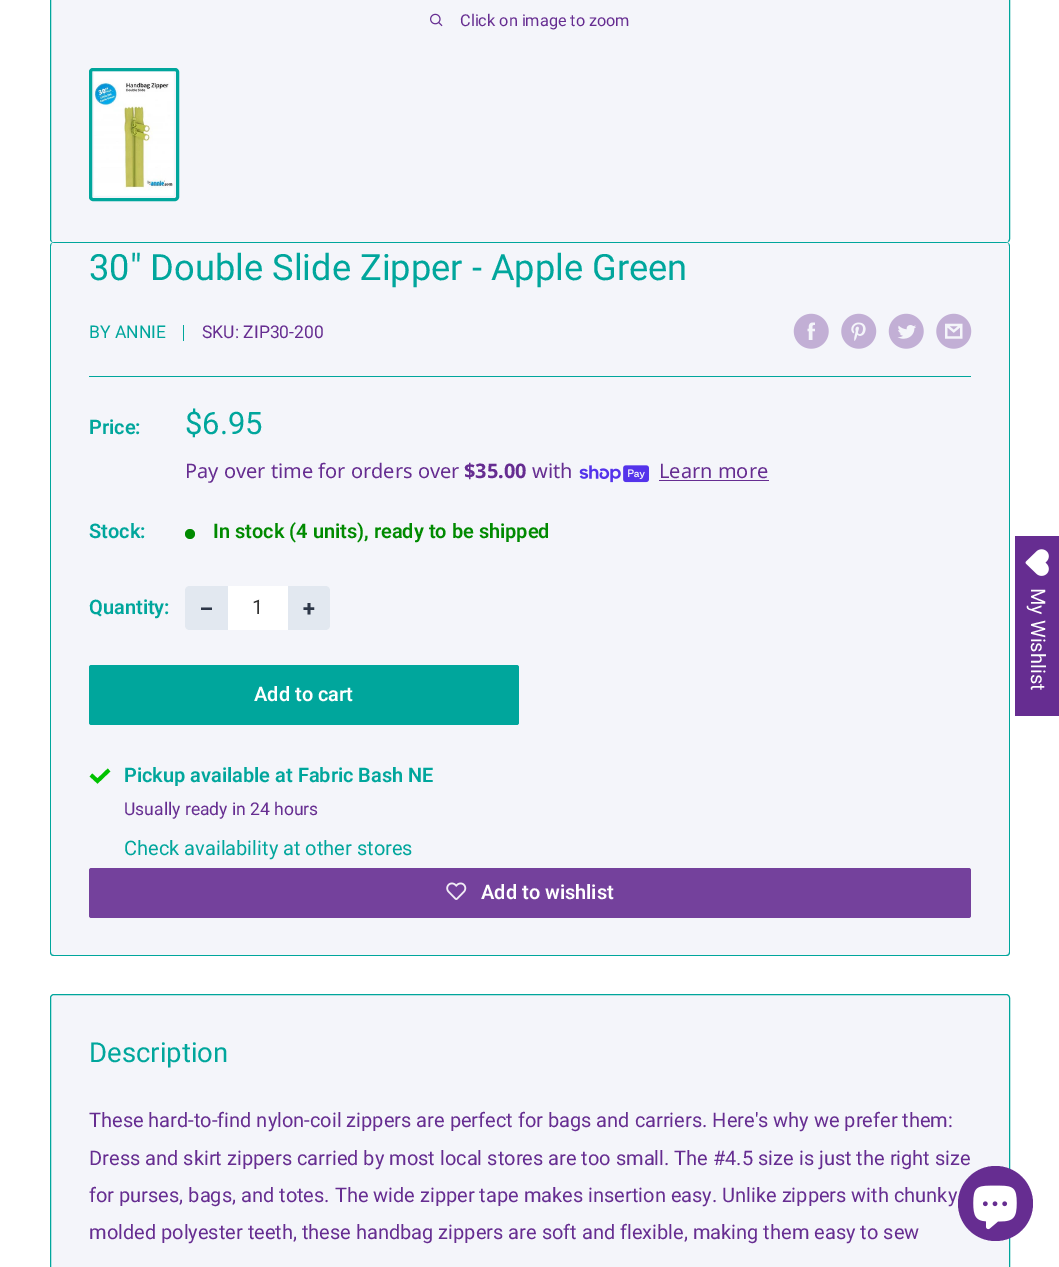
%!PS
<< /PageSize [1059 1267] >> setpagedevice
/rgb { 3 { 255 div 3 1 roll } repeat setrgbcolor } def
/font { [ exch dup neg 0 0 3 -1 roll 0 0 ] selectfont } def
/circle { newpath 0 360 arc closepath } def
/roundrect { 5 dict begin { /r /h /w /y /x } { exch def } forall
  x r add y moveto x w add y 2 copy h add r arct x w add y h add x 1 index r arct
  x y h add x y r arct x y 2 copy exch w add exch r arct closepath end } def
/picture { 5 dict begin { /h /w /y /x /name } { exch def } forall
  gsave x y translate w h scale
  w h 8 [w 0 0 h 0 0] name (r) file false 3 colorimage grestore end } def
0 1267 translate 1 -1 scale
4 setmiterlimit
255 255 255 rgb
0 0 1059 1267 rectfill
244 245 250 rgb
50.5 -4.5 959 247 3.5 roundrect gsave fill grestore
0 166 156 rgb
stroke
(img/1.rgb) 430 13 13 14 picture
3 setlinewidth
90.5 69.5 87 130 2.5 roundrect stroke
(img/2.rgb) 94 72 80 124 picture
244 245 250 rgb
54 241 moveto 51 241 50 244 50 246 curveto 50 244 52 242 54 242 curveto 1006 242 lineto 1008 242 1010 244 1010 246 curveto 1010 244 1009 241 1006 241 curveto closepath fill
50 243 960 713 4 roundrect fill
0 166 156 rgb
54 242 moveto 1006 242 lineto 1008 242 1010 244 1010 246 curveto 1010 952 lineto 1010 955 1008 956 1006 956 curveto 54 956 lineto 52 956 50 955 50 952 curveto 50 246 lineto 50 244 52 242 54 242 curveto closepath 54 242 moveto 1006 242 lineto 1008 242 1009 244 1009 246 curveto 1009 952 lineto 1009 954 1008 955 1006 955 curveto 54 955 lineto 52 955 51 954 51 952 curveto 51 246 lineto 51 244 52 242 54 242 curveto closepath eofill
183 325 1 16 rectfill
(img/3.rgb) 793 313 36 36 picture
(img/4.rgb) 841 313 36 36 picture
(img/5.rgb) 888 313 36 36 picture
(img/6.rgb) 936 313 36 36 picture
89 376 882 1 rectfill
(img/7.rgb) 579 465 70 18 picture
102 45 145 rgb
659 480 110 1 rectfill
0 138 0 rgb
190 534 5 circle fill
226 232 240 rgb
190 586 moveto 228 586 lineto 228 630 lineto 190 630 lineto 187 630 185 628 185 625 curveto 185 591 lineto 185 588 187 586 190 586 curveto closepath fill
255 255 255 rgb
228 586 60 44 rectfill
226 232 240 rgb
288 586 moveto 325 586 lineto 328 586 330 588 330 591 curveto 330 625 lineto 330 628 328 630 325 630 curveto 288 630 lineto closepath fill
0 166 156 rgb
89 665 430 60 2.5 roundrect fill
0 194 0 rgb
3.8 setlinewidth
91 775 moveto 97.5 781 lineto 109 770 lineto stroke
116 65 156 rgb
89 868 882 50 2.5 roundrect fill
(img/8.rgb) 446 882 21 18 picture
244 245 250 rgb
50.5 994.5 959 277 3.5 roundrect gsave fill grestore
0 166 156 rgb
1 setlinewidth
stroke
102 45 145 rgb
1015 536 44 180 rectfill
(img/9.rgb) 1025 549 24 27 picture
995.5 1203.5 37.5 circle fill
(img/10.rgb) 973 1185 44 45 picture
/Roboto-Regular 16.25 font
460 26 moveto (Click on image to zoom) show
/Roboto-Regular 36.25 font
0 166 156 rgb
89 280 moveto (30" Double Slide Zipper - Apple Green) show
/Roboto-Regular 17.5 font
89 338 moveto (BY ANNIE) show
102 45 145 rgb
202 338 moveto (SKU: ZIP30-200) show
/Roboto-SemiBold 20 font
0 166 156 rgb
89 434 moveto (Price:) show
/Roboto-Regular 31 font
185 434 moveto ($6.95) show
/NotoSans-Regular 20 font
102 45 145 rgb
185 478 moveto (Pay over time for orders over) show
/NotoSans-Bold 20 font
464 478 moveto ($35.00) show
/NotoSans-Regular 20 font
532 478 moveto (with) show
659 478 moveto (Learn more) show
/Roboto-SemiBold 20 font
0 166 156 rgb
89 538 moveto (Stock:) show
0 138 0 rgb
213 538 moveto (In stock \(4 units\), ready to be shipped) show
0 166 156 rgb
89 614 moveto (Quantity:) show
/LiberationSans-Bold 22 font
45 55 72 rgb
200 616 moveto (−) show
/Roboto-Regular 20 font
51 51 51 rgb
252 614 moveto (1) show
/Roboto-Bold 22 font
45 55 72 rgb
303 616 moveto (+) show
/Roboto-SemiBold 20 font
255 255 255 rgb
254 701 moveto (Add to cart) show
0 166 156 rgb
124 782 moveto (Pickup available at Fabric Bash NE) show
/Roboto-Regular 17.5 font
102 45 145 rgb
124 815 moveto (Usually ready in 24 hours) show
/Roboto-Regular 20 font
0 166 156 rgb
124 855 moveto (Check availability at other stores) show
/Roboto-SemiBold 20 font
255 255 255 rgb
481 899 moveto (Add to wishlist) show
/Roboto-Regular 27.5 font
0 166 156 rgb
89 1062 moveto (Description) show
/Roboto-Regular 20 font
102 45 145 rgb
[
  [(These hard-to-find nylon-coil zippers are perfect for bags and carriers. Here's why we prefer them:) 89 1127]
  [(Dress and skirt zippers carried by most local stores are too small. The #4.5 size is just the right size) 89 1165]
  [(for purses, bags, and totes. The wide zipper tape makes insertion easy. Unlike zippers with chunky) 89 1202]
  [(molded polyester teeth, these handbag zippers are soft and flexible, making them easy to sew) 89 1239]
] { aload pop moveto show } forall
255 255 255 rgb
gsave 1031 588 translate 90 rotate 0 0 moveto (My Wishlist) show grestore
showpage
